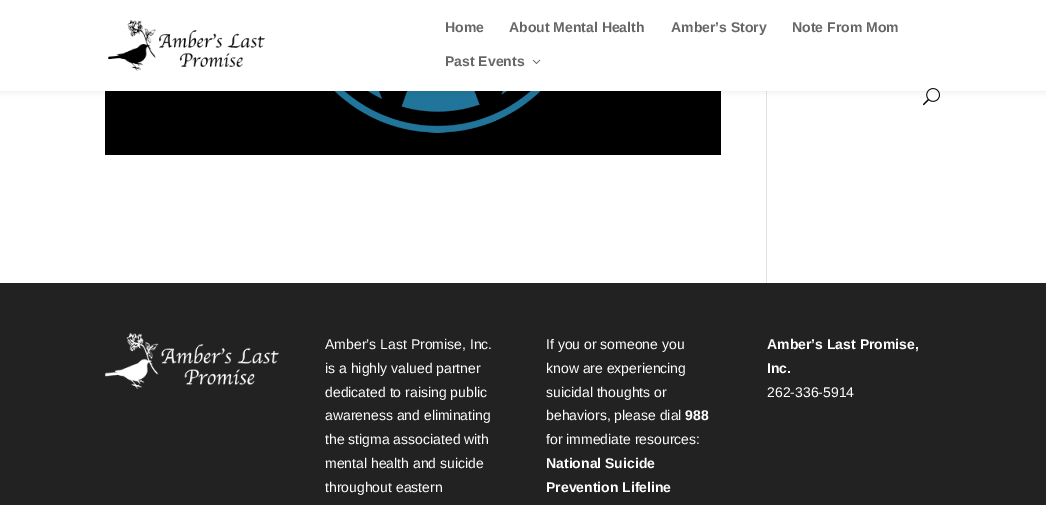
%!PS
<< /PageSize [1046 505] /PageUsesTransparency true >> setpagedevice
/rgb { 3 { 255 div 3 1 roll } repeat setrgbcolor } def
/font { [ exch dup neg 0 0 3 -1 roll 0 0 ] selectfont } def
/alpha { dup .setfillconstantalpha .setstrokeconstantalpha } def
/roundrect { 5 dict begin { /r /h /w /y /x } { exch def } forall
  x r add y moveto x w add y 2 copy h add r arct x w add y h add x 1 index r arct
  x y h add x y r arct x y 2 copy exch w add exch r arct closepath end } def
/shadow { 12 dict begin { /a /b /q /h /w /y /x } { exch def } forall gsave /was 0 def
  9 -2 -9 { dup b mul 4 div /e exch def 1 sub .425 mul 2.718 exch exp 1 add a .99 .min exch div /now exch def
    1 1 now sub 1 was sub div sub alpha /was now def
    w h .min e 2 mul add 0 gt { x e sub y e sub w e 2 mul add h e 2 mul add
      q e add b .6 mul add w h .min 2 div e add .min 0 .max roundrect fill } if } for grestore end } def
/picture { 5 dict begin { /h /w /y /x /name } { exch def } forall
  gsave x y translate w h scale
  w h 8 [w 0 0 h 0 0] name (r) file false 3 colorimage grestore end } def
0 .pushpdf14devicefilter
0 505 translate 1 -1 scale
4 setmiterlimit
255 255 255 rgb
0 0 1046 505 rectfill
(img/4.rgb) 105 91 616 64 picture
226 226 226 rgb
766 91 1 192 rectfill
0 0 0 rgb
0 0 1046 91 0 3.5 0.1 shadow
255 255 255 rgb
0 0 1046 91 rectfill
(img/1.rgb) 108 20 157 51 picture
(img/2.rgb) 532 59 9 5 picture
(img/3.rgb) 923 88 17 18 picture
34 34 34 rgb
0 283 1046 222 rectfill
(img/5.rgb) 105 333 174 56 picture
/LiberationSans-Bold 14 font
102 102 102 rgb
[
  [(Home) 445 32]
  [(About Mental Health) 509 32]
  [(Amber’s Story) 671 32]
  [(Note From Mom) 792 32]
  [(Past Events) 445 66]
] { aload pop moveto show } forall
/LiberationSans-Regular 14 font
255 255 255 rgb
[
  [(Amber’s Last Promise, Inc.) 325 349]
  [(is a highly valued partner) 325 373]
  [(dedicated to raising public) 325 397]
  [(awareness and eliminating) 325 420]
  [(the stigma associated with) 325 444]
  [(mental health and suicide) 325 468]
  [(throughout eastern) 325 492]
  [(If you or someone you) 546 349]
  [(know are experiencing) 546 373]
  [(suicidal thoughts or) 546 397]
  [(behaviors, please dial) 546 420]
] { aload pop moveto show } forall
/LiberationSans-Bold 14 font
685 420 moveto (988) show
/LiberationSans-Regular 14 font
546 444 moveto (for immediate resources:) show
/LiberationSans-Bold 14 font
[
  [(National Suicide) 546 468]
  [(Prevention Lifeline) 546 492]
  [(Amber’s Last Promise,) 767 349]
  [(Inc.) 767 373]
] { aload pop moveto show } forall
/LiberationSans-Regular 14 font
767 397 moveto (262-336-5914) show
.poppdf14devicefilter showpage
